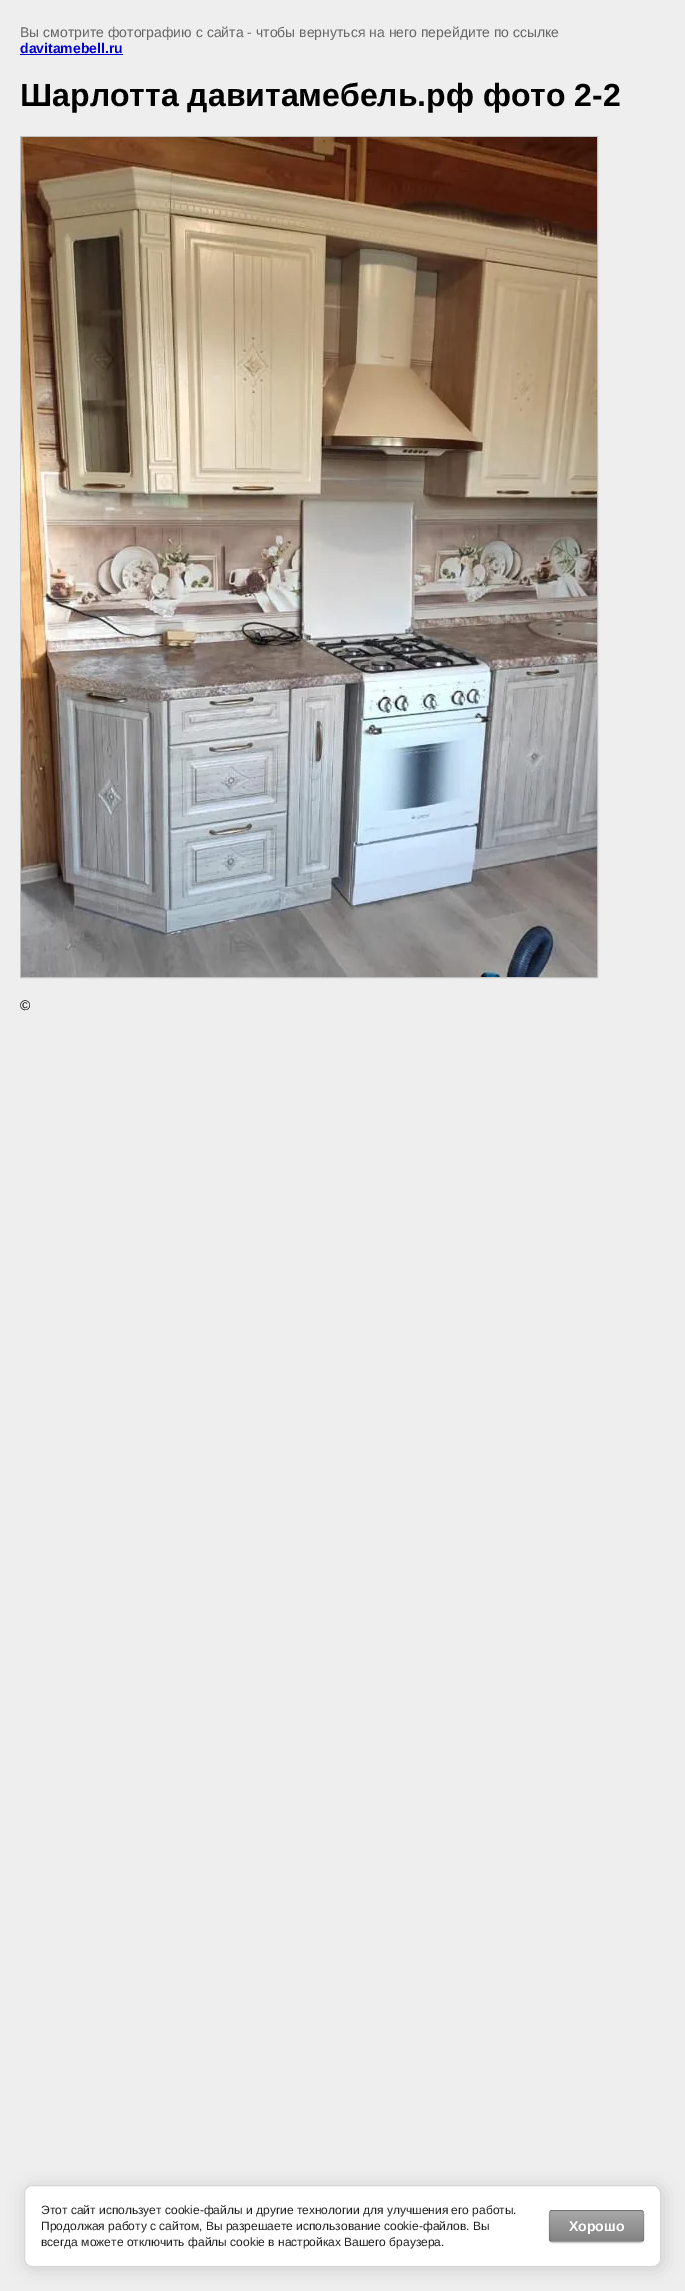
%!PS
<< /PageSize [685 2291] /PageUsesTransparency true >> setpagedevice
/rgb { 3 { 255 div 3 1 roll } repeat setrgbcolor } def
/font { [ exch dup neg 0 0 3 -1 roll 0 0 ] selectfont } def
/alpha { dup .setfillconstantalpha .setstrokeconstantalpha } def
/roundrect { 5 dict begin { /r /h /w /y /x } { exch def } forall
  x r add y moveto x w add y 2 copy h add r arct x w add y h add x 1 index r arct
  x y h add x y r arct x y 2 copy exch w add exch r arct closepath end } def
/shadow { 12 dict begin { /a /b /q /h /w /y /x } { exch def } forall gsave /was 0 def
  9 -2 -9 { dup b mul 4 div /e exch def 1 sub .425 mul 2.718 exch exp 1 add a .99 .min exch div /now exch def
    1 1 now sub 1 was sub div sub alpha /was now def
    w h .min e 2 mul add 0 gt { x e sub y e sub w e 2 mul add h e 2 mul add
      q e add b .6 mul add w h .min 2 div e add .min 0 .max roundrect fill } if } for grestore end } def
/picture { 5 dict begin { /h /w /y /x /name } { exch def } forall
  gsave x y translate w h scale
  w h 8 [w 0 0 h 0 0] name (r) file false 3 colorimage grestore end } def
0 .pushpdf14devicefilter
0 2291 translate 1 -1 scale
4 setmiterlimit
238 238 238 rgb
0 0 685 2291 rectfill
0 0 204 rgb
20 54 103 1 rectfill
192 192 192 rgb
20.5 136.5 577 841 rectstroke
(img/1.rgb) 21 137 576 840 picture
0 0 0 rgb
26 2187 637 82 8 9 0.14 shadow
255 255 255 rgb
24.5 2185.5 636 81 7.5 roundrect gsave fill grestore
214 214 214 rgb
stroke
0 0 0 rgb
549 2211 95 32 4 0.5 0.2 shadow
gsave
549 2210 95 32 4 roundrect clip newpath
gsave 549 2210 moveto 644 2210 lineto 644 2211 lineto 549 2211 lineto closepath clip newpath
<< /ShadingType 2 /ColorSpace /DeviceRGB /Coords [597 2181 597 2211] /Extend [true true] /Function << /FunctionType 2 /Domain [0 1] /C0 [0.659 0.659 0.659] /C1 [0.51 0.51 0.51] /N 1 >> >> shfill grestore
gsave 549 2211 moveto 644 2211 lineto 644 2241 lineto 549 2241 lineto closepath clip newpath
<< /ShadingType 2 /ColorSpace /DeviceRGB /Coords [597 2211 597 2241] /Extend [true true] /Function << /FunctionType 2 /Domain [0 1] /C0 [0.659 0.659 0.659] /C1 [0.51 0.51 0.51] /N 1 >> >> shfill grestore
gsave 549 2241 moveto 644 2241 lineto 644 2242 lineto 549 2242 lineto closepath clip newpath
<< /ShadingType 2 /ColorSpace /DeviceRGB /Coords [597 2241 597 2271] /Extend [true true] /Function << /FunctionType 2 /Domain [0 1] /C0 [0.659 0.659 0.659] /C1 [0.51 0.51 0.51] /N 1 >> >> shfill grestore
grestore
0.1 alpha
549.5 2210.5 94 31 3.5 roundrect stroke
/LiberationSans-Regular 14 font
1 alpha
102 102 102 rgb
20 37 moveto (Вы смотрите фотографию с сайта - чтобы вернуться на него перейдите по ссылке) show
/LiberationSans-Bold 14 font
0 0 204 rgb
20 53 moveto (davitamebell.ru) show
/LiberationSans-Bold 32 font
0 0 0 rgb
20 106 moveto (Шарлотта давитамебель.рф фото 2-2) show
/LiberationSans-Regular 14 font
20 1010 moveto (©) show
/LiberationSans-Regular 12 font
33 33 33 rgb
[
  [(Этот сайт использует cookie-файлы и другие технологии для улучшения его работы.) 41 2214]
  [(Продолжая работу с сайтом, Вы разрешаете использование cookie-файлов. Вы) 41 2230]
  [(всегда можете отключить файлы cookie в настройках Вашего браузера.) 41 2246]
] { aload pop moveto show } forall
/LiberationSans-Bold 14 font
255 255 255 rgb
569 2231 moveto (Хорошо) show
.poppdf14devicefilter showpage
